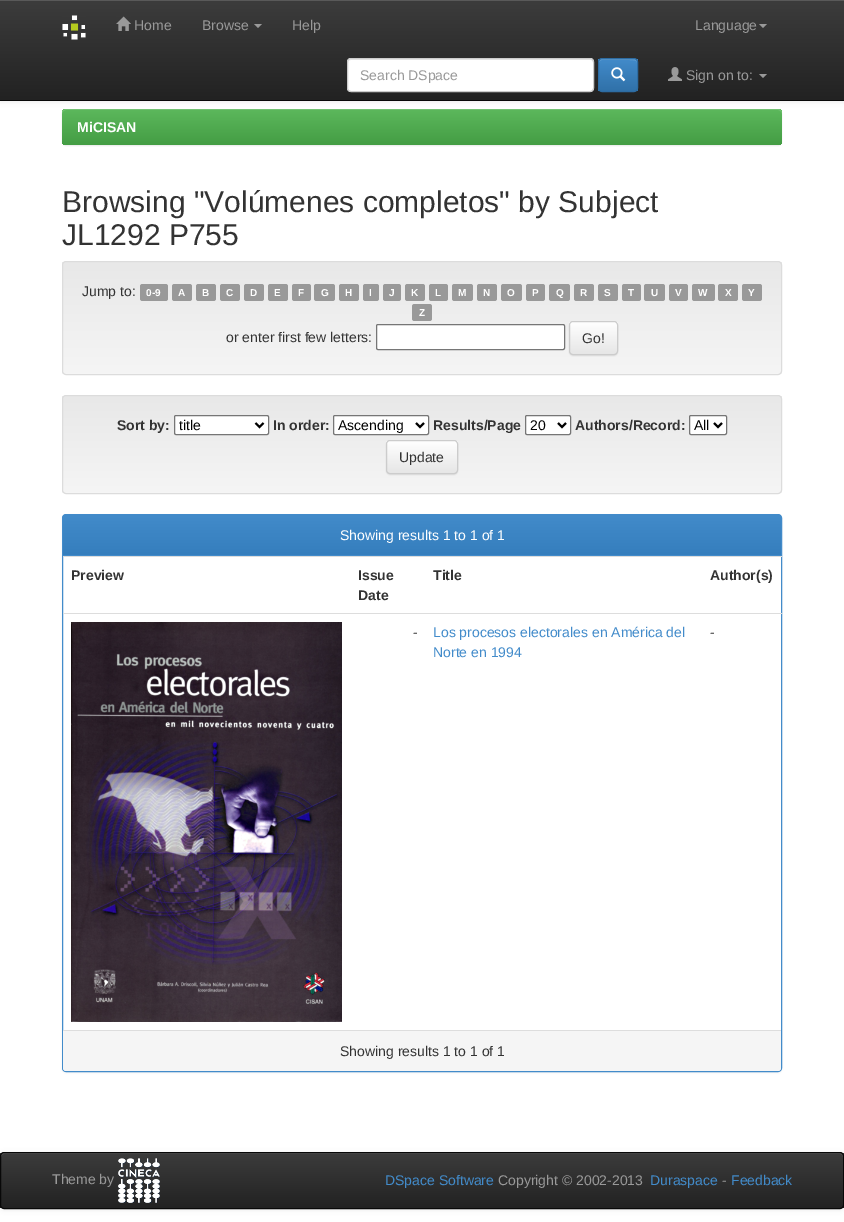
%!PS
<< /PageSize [844 1222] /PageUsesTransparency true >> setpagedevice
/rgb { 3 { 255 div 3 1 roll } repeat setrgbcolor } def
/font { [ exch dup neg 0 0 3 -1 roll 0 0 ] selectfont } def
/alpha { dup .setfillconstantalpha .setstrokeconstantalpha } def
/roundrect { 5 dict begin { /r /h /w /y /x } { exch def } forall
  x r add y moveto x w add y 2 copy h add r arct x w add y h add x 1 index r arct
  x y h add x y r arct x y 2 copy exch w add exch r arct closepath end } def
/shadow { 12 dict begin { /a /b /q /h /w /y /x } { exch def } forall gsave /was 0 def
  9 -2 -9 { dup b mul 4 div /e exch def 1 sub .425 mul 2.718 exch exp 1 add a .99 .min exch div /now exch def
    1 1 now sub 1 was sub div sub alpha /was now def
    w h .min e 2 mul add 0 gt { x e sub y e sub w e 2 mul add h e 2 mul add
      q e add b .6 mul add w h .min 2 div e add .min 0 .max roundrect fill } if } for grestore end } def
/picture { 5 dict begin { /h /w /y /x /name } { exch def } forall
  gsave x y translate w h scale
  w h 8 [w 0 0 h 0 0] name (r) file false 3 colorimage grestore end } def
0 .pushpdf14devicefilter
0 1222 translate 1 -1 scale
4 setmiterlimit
255 255 255 rgb
0 0 844 1222 rectfill
0 0 0 rgb
62 110 720 36 4 0.5 0.07 shadow
gsave 62 109 720 36 4 roundrect clip newpath
<< /ShadingType 2 /ColorSpace /DeviceRGB /Coords [422 109 422 145] /Extend [true true] /Function << /FunctionType 2 /Domain [0 1] /C0 [0.361 0.722 0.361] /C1 [0.267 0.616 0.267] /N 1 >> >> shfill grestore
0.15 alpha
255 255 255 rgb
66 110 moveto 778 110 lineto 780 110 782 112 782 114 curveto 782 111 781 109 778 109 curveto 66 109 lineto 63 110 lineto 62 111 lineto 62 114 lineto 62 112 64 110 66 110 curveto closepath fill
1 alpha
0 0 0 rgb
0 1 844 101 0 2.5 0.07 shadow
gsave 0 1 moveto 844 1 lineto 844 100 lineto 0 100 lineto closepath clip newpath
<< /ShadingType 2 /ColorSpace /DeviceRGB /Coords [422 0 422 100] /Extend [true true] /Function << /FunctionType 2 /Domain [0 1] /C0 [0.235 0.235 0.235] /C1 [0.133 0.133 0.133] /N 1 >> >> shfill grestore
89 89 89 rgb
0 0 844 1 rectfill
8 8 8 rgb
0 100 844 1 rectfill
(img/1.rgb) 62 15 24 25 picture
(img/2.rgb) 116 16 15 15 picture
153 153 153 rgb
254 24 moveto 262 24 lineto 258 28 lineto closepath fill
759 24 moveto 767 24 lineto 763 28 lineto closepath fill
255 255 255 rgb
347 58 247 34 4 roundrect fill
236 236 236 rgb
351 60 moveto 591 60 lineto 593 61 lineto 593 63 lineto 593 61 592 59 590 59 curveto 351 59 lineto 349 59 348 61 348 63 curveto 348 61 349 60 351 60 curveto closepath fill
204 204 204 rgb
347.5 58.5 246 33 3.5 roundrect stroke
gsave
598 58 40 34 4 roundrect clip newpath
gsave 598 59 moveto 638 59 lineto 638 91 lineto 598 91 lineto closepath clip newpath
<< /ShadingType 2 /ColorSpace /DeviceRGB /Coords [618 59 618 91] /Extend [true true] /Function << /FunctionType 2 /Domain [0 1] /C0 [0.259 0.545 0.792] /C1 [0.188 0.443 0.663] /N 1 >> >> shfill grestore
grestore
94 156 209 rgb
602 60 moveto 629 60 lineto 634.5 60 636.5 60.5 637 62.5 curveto 637 57.5 632.5 59 628.5 59 curveto 607.5 59 lineto 604 59 599 58 599 62.5 curveto 599.5 61 600.5 60 602 60 curveto closepath fill
45 108 162 rgb
598.5 58.5 39 33 3.5 roundrect stroke
(img/3.rgb) 611 67 15 15 picture
(img/4.rgb) 668 67 14 14 picture
153 153 153 rgb
759 74 moveto 767 74 lineto 763 78 lineto closepath fill
gsave
62 261 720 114 4 roundrect clip newpath
gsave 62 262 moveto 782 262 lineto 782 374 lineto 62 374 lineto closepath clip newpath
<< /ShadingType 2 /ColorSpace /DeviceRGB /Coords [422 262 422 374] /Extend [true true] /Function << /FunctionType 2 /Domain [0 1] /C0 [0.91 0.91 0.91] /C1 [0.961 0.961 0.961] /N 1 >> >> shfill grestore
grestore
220 220 220 rgb
62.5 261.5 719 113 3.5 roundrect stroke
153 153 153 rgb
140 284 28 17 2.5 roundrect fill
172 284 20 17 2.5 roundrect fill
196 284 20 17 2.5 roundrect fill
220 284 20 17 2.5 roundrect fill
244 284 20 17 2.5 roundrect fill
268 284 20 17 2.5 roundrect fill
292 284 19 17 2.5 roundrect fill
314 284 21 17 2.5 roundrect fill
339 284 20 17 2.5 roundrect fill
363 284 16 17 2.5 roundrect fill
383 284 18 17 2.5 roundrect fill
405 284 20 17 2.5 roundrect fill
429 284 19 17 2.5 roundrect fill
452 284 21 17 2.5 roundrect fill
477 284 20 17 2.5 roundrect fill
501 284 21 17 2.5 roundrect fill
526 284 19 17 2.5 roundrect fill
549 284 21 17 2.5 roundrect fill
574 284 20 17 2.5 roundrect fill
598 284 20 17 2.5 roundrect fill
622 284 19 17 2.5 roundrect fill
644 284 21 17 2.5 roundrect fill
669 284 19 17 2.5 roundrect fill
692 284 23 17 2.5 roundrect fill
718 284 20 17 2.5 roundrect fill
742 284 20 17 2.5 roundrect fill
412 304 20 17 2.5 roundrect fill
255 255 255 rgb
376.5 324.5 188 25 1.5 roundrect gsave fill grestore
118 118 118 rgb
stroke
0 0 0 rgb
569 322 49 34 4 0.5 0.07 shadow
gsave
569 321 49 34 4 roundrect clip newpath
gsave 569 322 moveto 618 322 lineto 618 354 lineto 569 354 lineto closepath clip newpath
<< /ShadingType 2 /ColorSpace /DeviceRGB /Coords [594 322 594 354] /Extend [true true] /Function << /FunctionType 2 /Domain [0 1] /C0 [1 1 1] /C1 [0.902 0.902 0.902] /N 1 >> >> shfill grestore
grestore
204 204 204 rgb
569.5 321.5 48 33 3.5 roundrect stroke
gsave
62 395 720 99 4 roundrect clip newpath
gsave 62 396 moveto 782 396 lineto 782 493 lineto 62 493 lineto closepath clip newpath
<< /ShadingType 2 /ColorSpace /DeviceRGB /Coords [422 396 422 493] /Extend [true true] /Function << /FunctionType 2 /Domain [0 1] /C0 [0.91 0.91 0.91] /C1 [0.961 0.961 0.961] /N 1 >> >> shfill grestore
grestore
220 220 220 rgb
62.5 395.5 719 98 3.5 roundrect stroke
255 255 255 rgb
174.5 415.5 94 19 1.5 roundrect gsave fill grestore
118 118 118 rgb
stroke
0 0 0 rgb
2 setlinewidth
255.5 423 moveto 259.5 427 lineto 263.5 423 lineto stroke
255 255 255 rgb
333.5 415.5 95 19 1.5 roundrect gsave fill grestore
118 118 118 rgb
1 setlinewidth
stroke
0 0 0 rgb
2 setlinewidth
416 423 moveto 420 427 lineto 424 423 lineto stroke
255 255 255 rgb
525.5 415.5 45 19 1.5 roundrect gsave fill grestore
118 118 118 rgb
1 setlinewidth
stroke
0 0 0 rgb
2 setlinewidth
558 423 moveto 562 427 lineto 566 423 lineto stroke
255 255 255 rgb
689.5 415.5 37 19 1.5 roundrect gsave fill grestore
118 118 118 rgb
1 setlinewidth
stroke
0 0 0 rgb
2 setlinewidth
714 423 moveto 718 427 lineto 722 423 lineto stroke
386 441 72 34 4 0.5 0.07 shadow
gsave
386 440 72 34 4 roundrect clip newpath
gsave 386 441 moveto 458 441 lineto 458 473 lineto 386 473 lineto closepath clip newpath
<< /ShadingType 2 /ColorSpace /DeviceRGB /Coords [422 441 422 473] /Extend [true true] /Function << /FunctionType 2 /Domain [0 1] /C0 [1 1 1] /C1 [0.902 0.902 0.902] /N 1 >> >> shfill grestore
grestore
204 204 204 rgb
1 setlinewidth
386.5 440.5 71 33 3.5 roundrect stroke
0 0 0 rgb
62 515 720 558 4 1 0.05 shadow
255 255 255 rgb
62.5 514.5 719 557 3.5 roundrect gsave fill grestore
66 139 202 rgb
stroke
66 515 moveto 778 515 lineto 779.5 515 781 516.5 781 518 curveto 781 556 lineto 63 556 lineto 63 518 lineto 63 516.5 64.5 515 66 515 curveto closepath fill
gsave 66 515 moveto 778 515 lineto 779.5 515 781 516.5 781 518 curveto 781 555 lineto 63 555 lineto 63 518 lineto 63 516.5 64.5 515 66 515 curveto closepath clip newpath
<< /ShadingType 2 /ColorSpace /DeviceRGB /Coords [422 515 422 555] /Extend [true true] /Function << /FunctionType 2 /Domain [0 1] /C0 [0.259 0.545 0.792] /C1 [0.208 0.494 0.741] /N 1 >> >> shfill grestore
221 221 221 rgb
63 556 719 1 rectfill
(img/5.rgb) 71 622 271 400 picture
63 613 719 1 rectfill
245 245 245 rgb
63 1030 moveto 781 1030 lineto 781 1068 lineto 781 1069.5 779.5 1071 778 1071 curveto 66 1071 lineto 64.5 1071 63 1069.5 63 1068 curveto closepath fill
221 221 221 rgb
63 1030 718 1 rectfill
0 0 0 rgb
0 1153 844 57 4 2.5 0.07 shadow
gsave
0 1152 844 57 4 roundrect clip newpath
gsave 0 1153 moveto 844 1153 lineto 844 1208 lineto 0 1208 lineto closepath clip newpath
<< /ShadingType 2 /ColorSpace /DeviceRGB /Coords [422 1153 422 1208] /Extend [true true] /Function << /FunctionType 2 /Domain [0 1] /C0 [0.235 0.235 0.235] /C1 [0.133 0.133 0.133] /N 1 >> >> shfill grestore
grestore
89 89 89 rgb
4 1154 moveto 840 1154 lineto 842 1154 843 1155 843 1157 curveto 843 1155 842 1153 840 1153 curveto 4 1153 lineto 2 1153 1 1155 1 1157 curveto 1 1155 2 1154 4 1154 curveto closepath fill
8 8 8 rgb
0.5 1152.5 843 56 3.5 roundrect stroke
(img/6.rgb) 118 1158 42 45 picture
/LiberationSans-Regular 14 font
153 153 153 rgb
[
  [(Home) 134 30]
  [(Browse) 202 30]
  [(Help) 292 30]
  [(Language) 695 30]
  [(Search DSpace) 360 80]
  [(Sign on to:) 686 80]
] { aload pop moveto show } forall
/LiberationSans-Bold 14 font
255 255 255 rgb
77 132 moveto (MiCISAN) show
/LiberationSans-Regular 30 font
51 51 51 rgb
62 212 moveto (Browsing "Volúmenes completos" by Subject) show
62 245 moveto (JL1292 P755) show
/LiberationSans-Regular 14 font
82 296 moveto (Jump to:) show
/LiberationSans-Bold 10 font
255 255 255 rgb
[
  [(0-9) 146 296]
  [(A) 178 296]
  [(B) 202 296]
  [(C) 226 296]
  [(D) 250 296]
  [(E) 274 296]
  [(F) 298 296]
  [(G) 321 296]
  [(H) 345 296]
  [(I) 369 296]
  [(J) 389 296]
  [(K) 411 296]
  [(L) 435 296]
  [(M) 458 296]
  [(N) 483 296]
  [(O) 507 296]
  [(P) 532 296]
  [(Q) 556 296]
  [(R) 580 296]
  [(S) 604 296]
  [(T) 628 296]
  [(U) 651 296]
  [(V) 675 296]
  [(W) 698 296]
  [(X) 725 296]
  [(Y) 748 296]
  [(Z) 419 316]
] { aload pop moveto show } forall
/LiberationSans-Regular 14 font
51 51 51 rgb
226 342 moveto (or enter first few letters:) show
582 343 moveto (Go!) show
/LiberationSans-Bold 14 font
117 430 moveto (Sort by:) show
/LiberationSans-Regular 14 font
0 0 0 rgb
179 430 moveto (title) show
/LiberationSans-Bold 14 font
51 51 51 rgb
273 430 moveto (In order:) show
/LiberationSans-Regular 14 font
0 0 0 rgb
338 430 moveto (Ascending) show
/LiberationSans-Bold 14 font
51 51 51 rgb
433 430 moveto (Results/Page) show
/LiberationSans-Regular 14 font
0 0 0 rgb
530 430 moveto (20) show
/LiberationSans-Bold 14 font
51 51 51 rgb
575 430 moveto (Authors/Record:) show
/LiberationSans-Regular 14 font
0 0 0 rgb
694 430 moveto (All) show
51 51 51 rgb
399 462 moveto (Update) show
255 255 255 rgb
340 540 moveto (Showing results 1 to 1 of 1) show
/LiberationSans-Bold 14 font
51 51 51 rgb
[
  [(Preview) 71 580]
  [(Issue) 358 580]
  [(Date) 358 600]
  [(Title) 433 580]
  [(Author\(s\)) 710 580]
] { aload pop moveto show } forall
/LiberationSans-Regular 14 font
413 637 moveto (-) show
66 139 202 rgb
433 637 moveto (Los procesos electorales en América del) show
433 657 moveto (Norte en 1994) show
51 51 51 rgb
710 637 moveto (-) show
340 1056 moveto (Showing results 1 to 1 of 1) show
153 153 153 rgb
52 1184 moveto (Theme by) show
66 139 202 rgb
385 1185 moveto (DSpace Software) show
153 153 153 rgb
498 1185 moveto (Copyright © 2002-2013) show
66 139 202 rgb
650 1185 moveto (Duraspace) show
153 153 153 rgb
722 1185 moveto (-) show
66 139 202 rgb
731 1185 moveto (Feedback) show
.poppdf14devicefilter showpage
